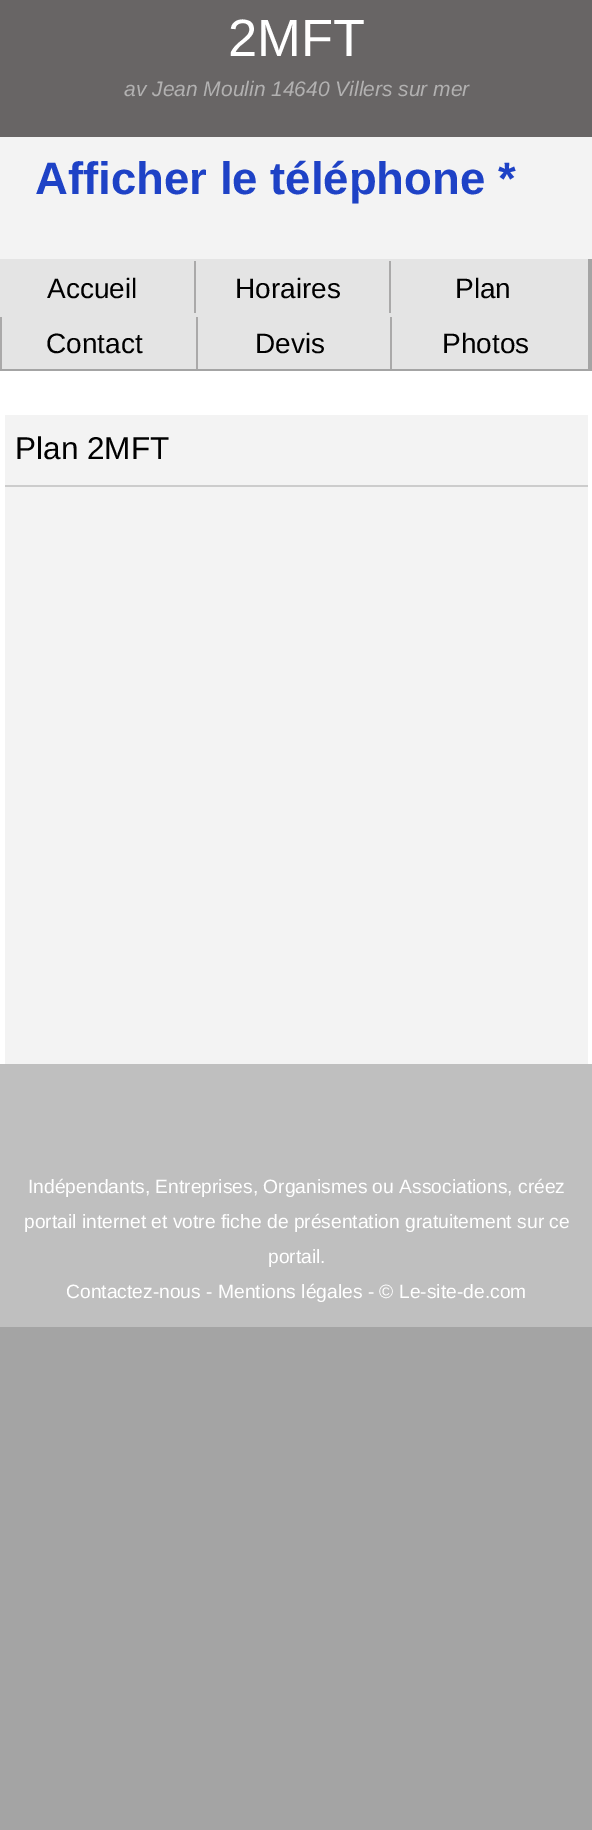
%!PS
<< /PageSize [592 1830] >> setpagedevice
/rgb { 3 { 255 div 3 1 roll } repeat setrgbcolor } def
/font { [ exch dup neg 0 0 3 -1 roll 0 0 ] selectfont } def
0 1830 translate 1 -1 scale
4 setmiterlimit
164 164 164 rgb
0 0 592 1830 rectfill
[
  [0 0 592 137 104 101 101]
  [0 137 592 122 243 243 243]
  [0 259 588 110 228 228 228]
  [194 261 2 52 170 169 169]
  [389 261 2 52 170 169 169]
  [0 317 2 52 170 169 169]
  [196 317 2 52 170 169 169]
  [390 317 2 52 170 169 169]
  [0 371 592 693 255 255 255]
  [5 415 583 649 243 243 243]
  [5 485 583 2 204 204 204]
  [0 1064 592 263 191 191 191]
] { aload pop rgb rectfill } forall
/LiberationSans-Regular 52.5 font
255 255 255 rgb
228 56 moveto (2MFT) show
/LiberationSans-Italic 21 font
178 177 177 rgb
124 96 moveto (av Jean Moulin 14640 Villers sur mer) show
/LiberationSans-Bold 45.5 font
30 66 198 rgb
35 194 moveto (Afficher le téléphone *) show
/LiberationSans-Regular 28 font
0 0 0 rgb
[
  [(Accueil) 47 298]
  [(Horaires) 235 298]
  [(Plan) 455 298]
  [(Contact) 46 353]
  [(Devis) 255 353]
  [(Photos) 442 353]
] { aload pop moveto show } forall
/LiberationSans-Regular 31.5 font
15 459 moveto (Plan 2MFT) show
/LiberationSans-Regular 19.25 font
255 255 255 rgb
[
  [(Indépendants, Entreprises, Organismes ou Associations, créez) 28 1193]
  [(portail internet et votre fiche de présentation gratuitement sur ce) 24 1228]
  [(portail.) 268 1263]
  [(Contactez-nous - Mentions légales - © Le-site-de.com) 66 1298]
] { aload pop moveto show } forall
showpage
